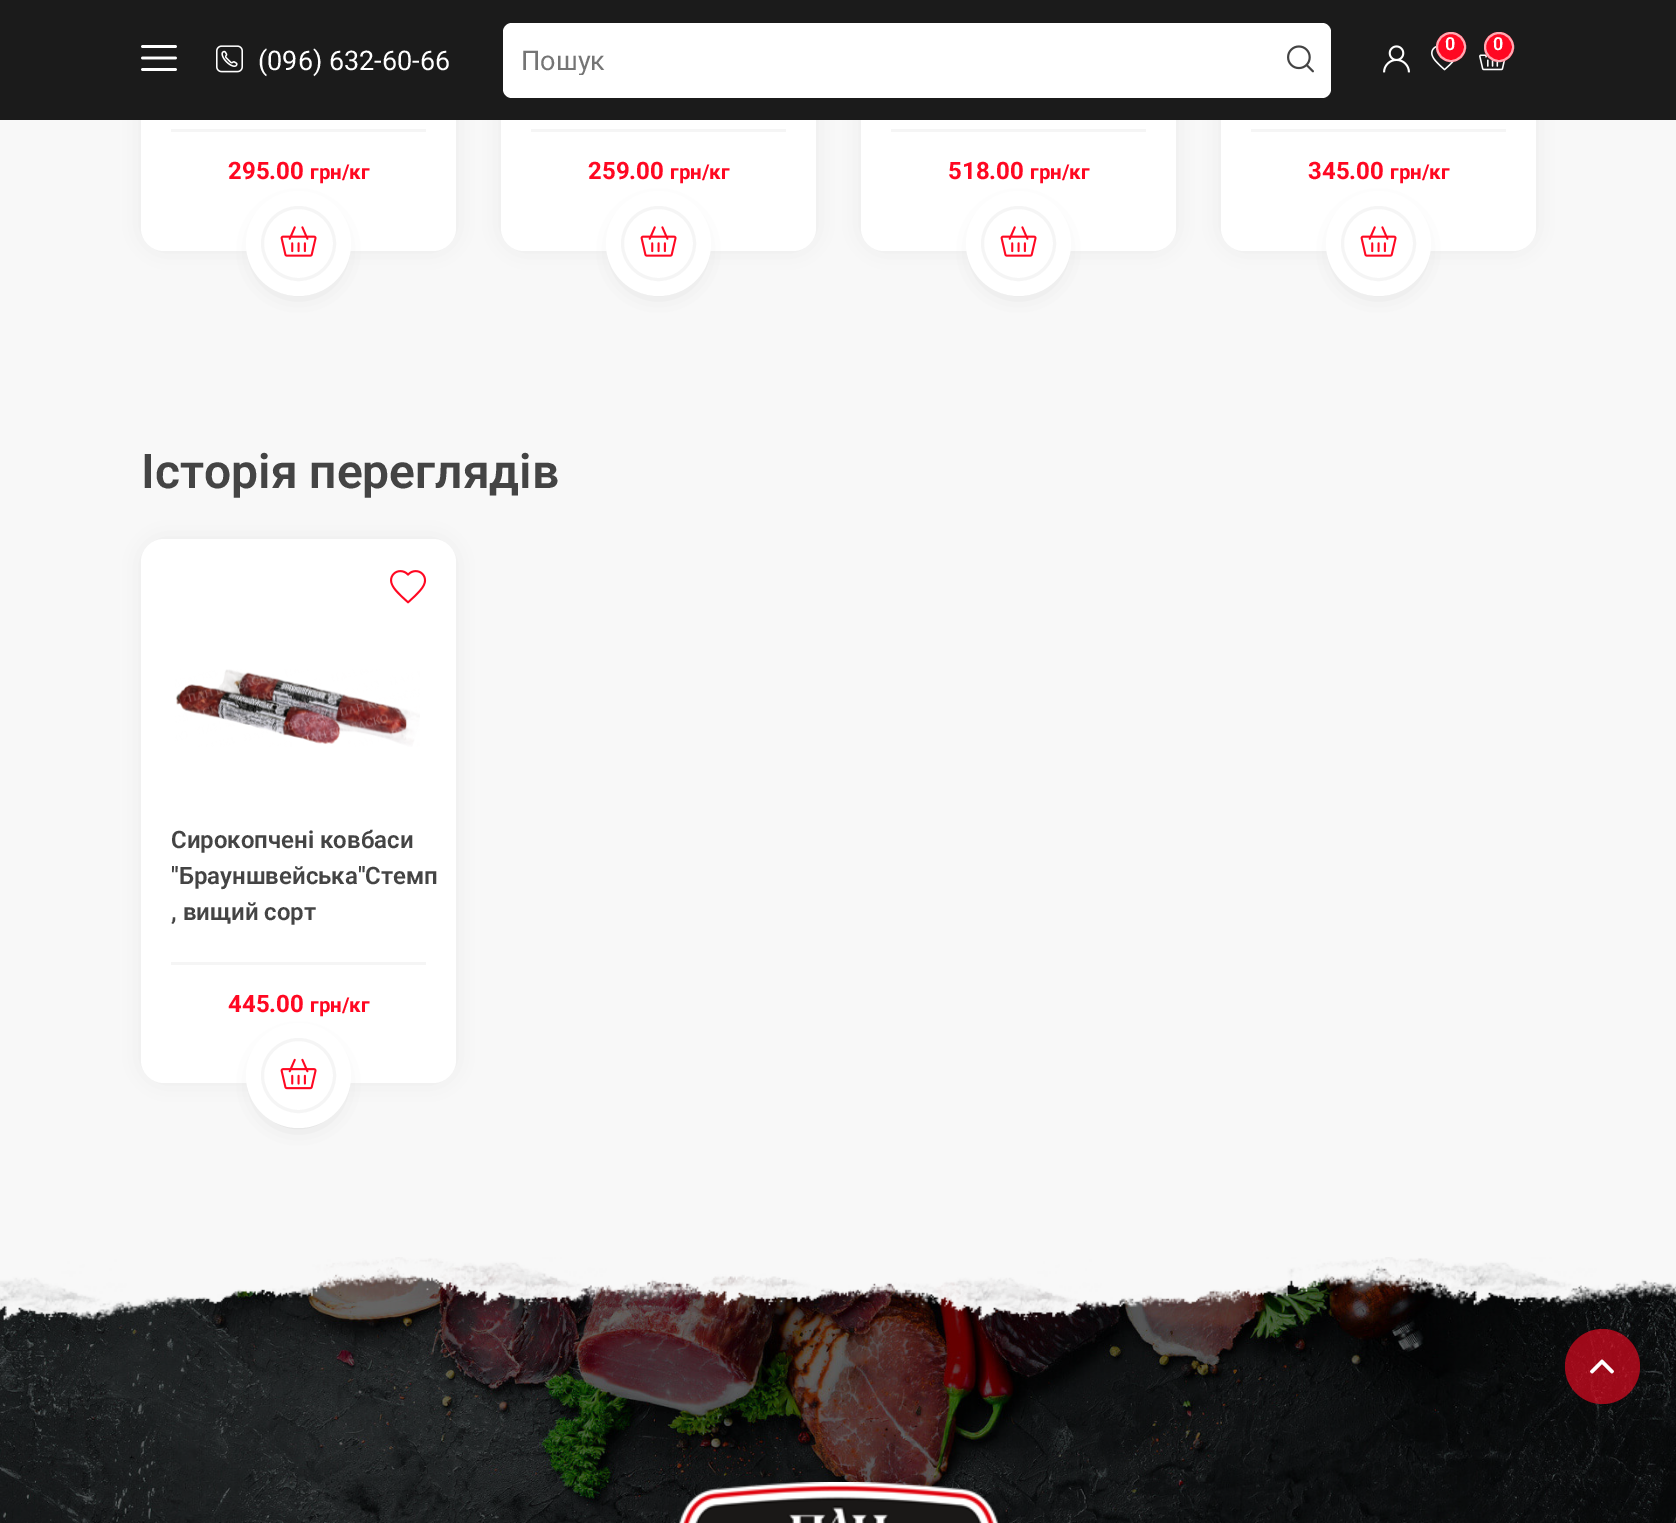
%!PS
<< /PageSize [1676 1523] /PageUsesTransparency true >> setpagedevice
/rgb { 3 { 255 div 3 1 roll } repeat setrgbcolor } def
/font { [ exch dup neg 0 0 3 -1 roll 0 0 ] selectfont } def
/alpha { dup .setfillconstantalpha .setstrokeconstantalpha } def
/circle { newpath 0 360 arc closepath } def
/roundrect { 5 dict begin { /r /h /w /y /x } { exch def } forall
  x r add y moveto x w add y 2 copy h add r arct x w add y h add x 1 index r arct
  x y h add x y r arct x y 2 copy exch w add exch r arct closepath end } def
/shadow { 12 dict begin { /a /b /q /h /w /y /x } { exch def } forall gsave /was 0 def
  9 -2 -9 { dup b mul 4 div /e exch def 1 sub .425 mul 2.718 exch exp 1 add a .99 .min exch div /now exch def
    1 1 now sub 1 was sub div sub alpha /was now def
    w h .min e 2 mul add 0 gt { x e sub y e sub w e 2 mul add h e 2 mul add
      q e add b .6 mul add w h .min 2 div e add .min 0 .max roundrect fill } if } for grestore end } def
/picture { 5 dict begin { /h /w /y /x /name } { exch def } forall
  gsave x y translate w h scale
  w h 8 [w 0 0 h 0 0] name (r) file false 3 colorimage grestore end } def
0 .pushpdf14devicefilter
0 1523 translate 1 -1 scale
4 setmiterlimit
255 255 255 rgb
0 0 1676 1523 rectfill
248 248 248 rgb
0 120 1676 1137 rectfill
0 0 0 rgb
141 -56 315 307 23 11 0.05 shadow
255 255 255 rgb
141 -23 315 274 23 roundrect fill
0 0 0 rgb
501 -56 315 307 23 11 0.05 shadow
255 255 255 rgb
501 -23 315 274 23 roundrect fill
0 0 0 rgb
861 -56 315 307 23 11 0.05 shadow
255 255 255 rgb
861 -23 315 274 23 roundrect fill
0 0 0 rgb
1221 -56 315 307 23 11 0.05 shadow
255 255 255 rgb
1221 -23 315 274 23 roundrect fill
27 27 27 rgb
0 0 1676 120 rectfill
(img/1.rgb) 141 45 36 26 picture
(img/2.rgb) 216 45 27 28 picture
255 255 255 rgb
503 23 828 75 9 roundrect fill
(img/3.rgb) 1287 45 27 28 picture
(img/4.rgb) 1383 45 27 28 picture
(img/5.rgb) 1431 45 24 26 picture
255 8 34 rgb
1451 47 15 circle fill
0.65 alpha
255 255 255 rgb
2 setlinewidth
1451 47 14 circle stroke
1 alpha
(img/6.rgb) 1479 54 27 17 picture
255 8 34 rgb
1499 47 15 circle fill
0.65 alpha
255 255 255 rgb
1499 47 14 circle stroke
1 alpha
245 245 245 rgb
171 129 255 3 rectfill
115 115 115 rgb
261 213 75 75 37.5 11 0.4 shadow
255 255 255 rgb
298.5 243.5 52.5 circle fill
245 245 245 rgb
3 setlinewidth
298.5 243.5 36 circle stroke
(img/7.rgb) 280 226 37 31 picture
531 129 255 3 rectfill
115 115 115 rgb
621 213 75 75 37.5 11 0.4 shadow
255 255 255 rgb
658.5 243.5 52.5 circle fill
245 245 245 rgb
658.5 243.5 36 circle stroke
(img/7.rgb) 640 226 37 31 picture
891 129 255 3 rectfill
115 115 115 rgb
981 213 75 75 37.5 11 0.4 shadow
255 255 255 rgb
1018.5 243.5 52.5 circle fill
245 245 245 rgb
1018.5 243.5 36 circle stroke
(img/7.rgb) 1000 226 37 31 picture
1251 129 255 3 rectfill
115 115 115 rgb
1341 213 75 75 37.5 11 0.4 shadow
255 255 255 rgb
1378.5 243.5 52.5 circle fill
245 245 245 rgb
1378.5 243.5 36 circle stroke
(img/7.rgb) 1360 226 37 31 picture
0 0 0 rgb
141 539 315 544 23 11 0.05 shadow
255 255 255 rgb
141 539 315 544 23 roundrect fill
(img/8.rgb) 390 570 37 34 picture
(img/9.rgb) 175 669 245 78 picture
245 245 245 rgb
171 962 255 3 rectfill
115 115 115 rgb
261 1046 75 75 37.5 11 0.4 shadow
255 255 255 rgb
298.5 1075.5 52.5 circle fill
245 245 245 rgb
298.5 1075.5 36 circle stroke
(img/10.rgb) 280 1058 37 32 picture
(img/12.rgb) 0 1257 1676 266 picture
(img/11.rgb) 0 1257 1676 65 picture
(img/13.rgb) 679 1482 320 41 picture
0.6 alpha
255 8 34 rgb
1602.5 1366.5 37.5 circle fill
1 alpha
(img/14.rgb) 1590 1359 24 15 picture
/Roboto-Regular 27 font
255 255 255 rgb
258 70 moveto (\(096\) 632-60-66) show
gsave
521 44 757 31 rectclip
117 117 117 rgb
521 70 moveto (Пошук) show
grestore
/Roboto-SemiBold 18 font
1445 50 moveto (0) show
1493 50 moveto (0) show
/Roboto-Bold 24 font
255 8 34 rgb
228 179 moveto (295.00) show
/Roboto-Bold 20.5 font
310 179 moveto (грн/кг) show
/Roboto-Bold 24 font
588 179 moveto (259.00) show
/Roboto-Bold 20.5 font
670 179 moveto (грн/кг) show
/Roboto-Bold 24 font
948 179 moveto (518.00) show
/Roboto-Bold 20.5 font
1030 179 moveto (грн/кг) show
/Roboto-Bold 24 font
1308 179 moveto (345.00) show
/Roboto-Bold 20.5 font
1390 179 moveto (грн/кг) show
/Roboto-SemiBold 48 font
68 68 68 rgb
141 488 moveto (Історія переглядів) show
/Roboto-SemiBold 24 font
[
  [(Сирокопчені ковбаси) 171 848]
  [("Брауншвейська"Стемп) 171 884]
  [(, вищий сорт) 171 920]
] { aload pop moveto show } forall
/Roboto-Bold 24 font
255 8 34 rgb
228 1012 moveto (445.00) show
/Roboto-Bold 20.5 font
310 1012 moveto (грн/кг) show
.poppdf14devicefilter showpage
